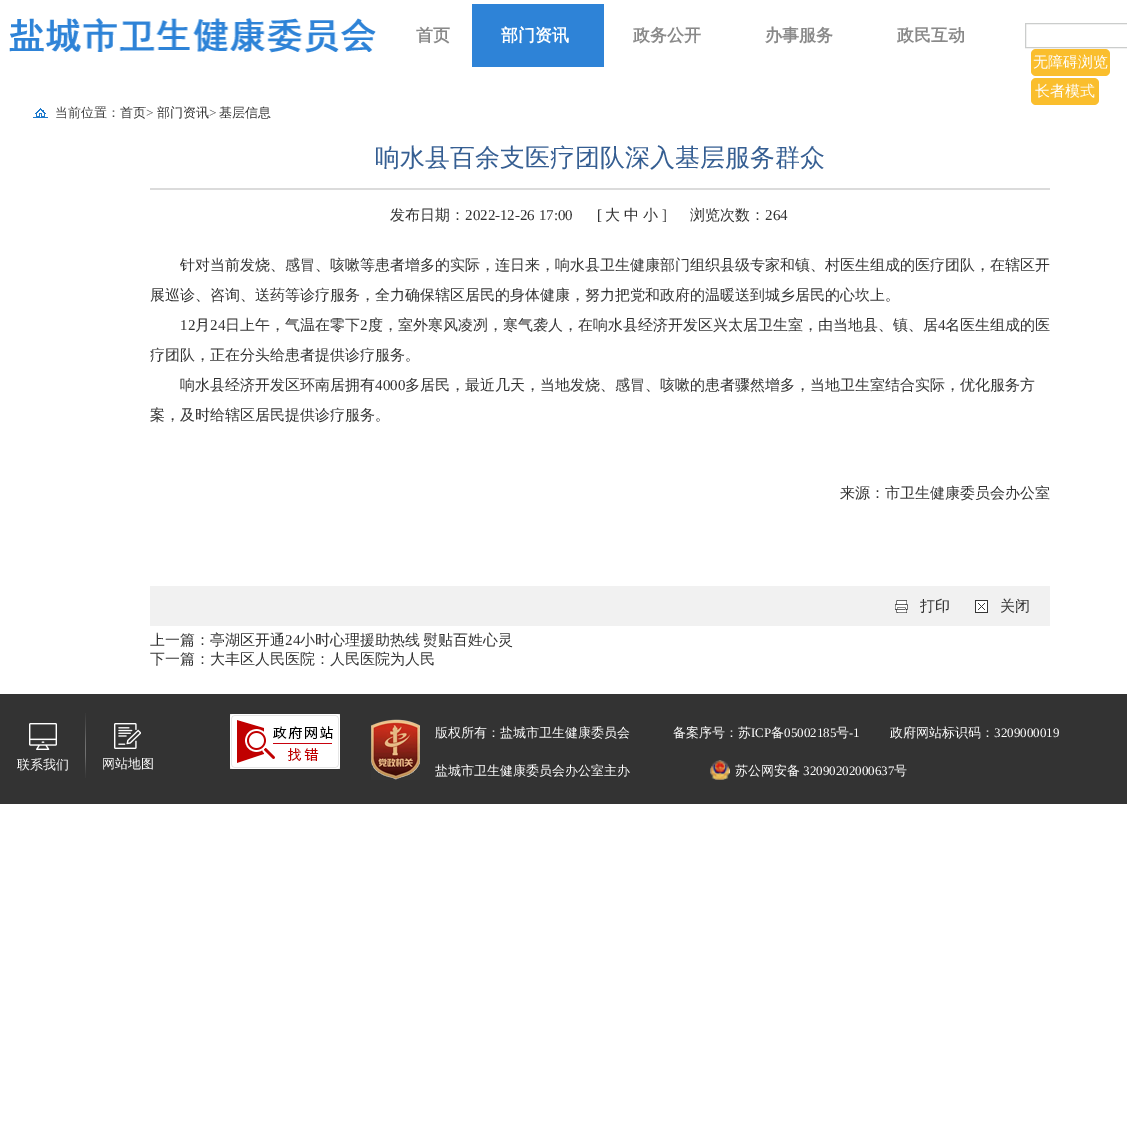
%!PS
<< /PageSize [1127 1121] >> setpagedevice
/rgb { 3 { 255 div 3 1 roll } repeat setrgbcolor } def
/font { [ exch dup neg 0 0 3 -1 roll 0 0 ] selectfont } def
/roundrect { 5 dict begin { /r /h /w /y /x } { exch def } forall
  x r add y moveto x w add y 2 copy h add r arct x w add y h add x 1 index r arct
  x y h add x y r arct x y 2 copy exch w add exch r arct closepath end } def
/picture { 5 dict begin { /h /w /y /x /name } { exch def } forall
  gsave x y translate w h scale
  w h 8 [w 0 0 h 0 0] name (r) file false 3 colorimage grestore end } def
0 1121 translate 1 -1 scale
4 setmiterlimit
255 255 255 rgb
0 0 1127 1121 rectfill
(img/1.rgb) 9 18 367 35 picture
46 131 215 rgb
472 4 132 63 rectfill
203 205 204 rgb
1025.5 23.5 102 24 rectstroke
250 190 45 rgb
1031 49 79 27 5 roundrect fill
1031 78 68 27 5 roundrect fill
(img/2.rgb) 33 108 15 10 picture
219 219 219 rgb
150 188 900 2 rectfill
241 241 241 rgb
150 586 900 40 rectfill
(img/3.rgb) 895 600 13 13 picture
(img/4.rgb) 975 600 13 13 picture
51 51 51 rgb
0 694 1127 110 rectfill
(img/5.rgb) 29 723 28 27 picture
(img/6.rgb) 85 713 1 65 picture
(img/7.rgb) 114 723 27 26 picture
(img/8.rgb) 230 714 110 55 picture
(img/9.rgb) 371 719 49 61 picture
(img/10.rgb) 710 760 20 20 picture
/WenQuanYiZenHei-Bold 17 font
137 137 137 rgb
416 41 moveto (首页) show
255 255 255 rgb
501 41 moveto (部门资讯) show
137 137 137 rgb
[
  [(政务公开) 633 41]
  [(办事服务) 765 41]
  [(政民互动) 897 41]
] { aload pop moveto show } forall
/WenQuanYiZenHei-Medium 15 font
255 255 255 rgb
1033 67 moveto (无障碍浏览) show
1035 96 moveto (长者模式) show
/WenQuanYiZenHei-Medium 13 font
69 69 69 rgb
55 117 moveto (当前位置：) show
51 51 51 rgb
120 117 moveto (首页) show
/LiberationSerif-Regular 13 font
69 69 69 rgb
146 117 moveto (>) show
/WenQuanYiZenHei-Medium 13 font
51 51 51 rgb
157 117 moveto (部门资讯) show
/LiberationSerif-Regular 13 font
69 69 69 rgb
209 117 moveto (>) show
/WenQuanYiZenHei-Medium 13 font
51 51 51 rgb
219 117 moveto (基层信息) show
/WenQuanYiZenHei-Medium 25 font
53 94 146 rgb
375 166 moveto (响水县百余支医疗团队深入基层服务群众) show
/WenQuanYiZenHei-Medium 15 font
51 51 51 rgb
390 220 moveto (发布日期：) show
/LiberationSerif-Regular 15 font
465 220 moveto (2022-12-26 17:00) show
597 220 moveto ([) show
/WenQuanYiZenHei-Medium 15 font
[
  [(大) 605 220]
  [(中) 624 220]
  [(小) 643 220]
] { aload pop moveto show } forall
/LiberationSerif-Regular 15 font
662 220 moveto (]) show
/WenQuanYiZenHei-Medium 15 font
690 220 moveto (浏览次数：) show
/LiberationSerif-Regular 15 font
765 220 moveto (264) show
/WenQuanYiZenHei-Medium 15 font
180 270 moveto (针对当前发烧、感冒、咳嗽等患者增多的实际，连日来，响水县卫生健康部门组织县级专家和镇、村医生组成的医疗团队，在辖区开) show
150 300 moveto (展巡诊、咨询、送药等诊疗服务，全力确保辖区居民的身体健康，努力把党和政府的温暖送到城乡居民的心坎上。) show
/LiberationSerif-Regular 15 font
180 330 moveto (12) show
/WenQuanYiZenHei-Medium 15 font
195 330 moveto (月) show
/LiberationSerif-Regular 15 font
210 330 moveto (24) show
/WenQuanYiZenHei-Medium 15 font
225 330 moveto (日上午，气温在零下) show
/LiberationSerif-Regular 15 font
360 330 moveto (2) show
/WenQuanYiZenHei-Medium 15 font
368 330 moveto (度，室外寒风凌冽，寒气袭人，在响水县经济开发区兴太居卫生室，由当地县、镇、居) show
/LiberationSerif-Regular 15 font
938 330 moveto (4) show
/WenQuanYiZenHei-Medium 15 font
[
  [(名医生组成的医) 945 330]
  [(疗团队，正在分头给患者提供诊疗服务。) 150 360]
  [(响水县经济开发区环南居拥有) 180 390]
] { aload pop moveto show } forall
/LiberationSerif-Regular 15 font
375 390 moveto (4000) show
/WenQuanYiZenHei-Medium 15 font
[
  [(多居民，最近几天，当地发烧、感冒、咳嗽的患者骤然增多，当地卫生室结合实际，优化服务方) 405 390]
  [(案，及时给辖区居民提供诊疗服务。) 150 420]
  [(来源：市卫生健康委员会办公室) 840 498]
  [(打印) 920 611]
  [(关闭) 1000 611]
  [(上一篇：亭湖区开通) 150 645]
] { aload pop moveto show } forall
/LiberationSerif-Regular 15 font
285 645 moveto (24) show
/WenQuanYiZenHei-Medium 15 font
300 645 moveto -1 0 32 (小时心理援助热线 熨贴百姓心灵) widthshow
150 664 moveto (下一篇：大丰区人民医院：人民医院为人民) show
/WenQuanYiZenHei-Medium 13 font
255 255 255 rgb
[
  [(联系我们) 17 769]
  [(网站地图) 102 768]
  [(版权所有：盐城市卫生健康委员会) 435 737]
  [(备案序号：苏) 673 737]
] { aload pop moveto show } forall
/LiberationSerif-Regular 13 font
751 737 moveto (ICP) show
/WenQuanYiZenHei-Medium 13 font
771 737 moveto (备) show
/LiberationSerif-Regular 13 font
784 737 moveto (05002185) show
/WenQuanYiZenHei-Medium 13 font
836 737 moveto (号) show
/LiberationSerif-Regular 13 font
849 737 moveto (-1) show
/WenQuanYiZenHei-Medium 13 font
890 737 moveto (政府网站标识码：) show
/LiberationSerif-Regular 13 font
994 737 moveto (3209000019) show
/WenQuanYiZenHei-Medium 13 font
435 775 moveto (盐城市卫生健康委员会办公室主办) show
735 775 moveto (苏公网安备) show
/LiberationSerif-Regular 13 font
803 775 moveto (32090202000637) show
/WenQuanYiZenHei-Medium 13 font
894 775 moveto (号) show
showpage
